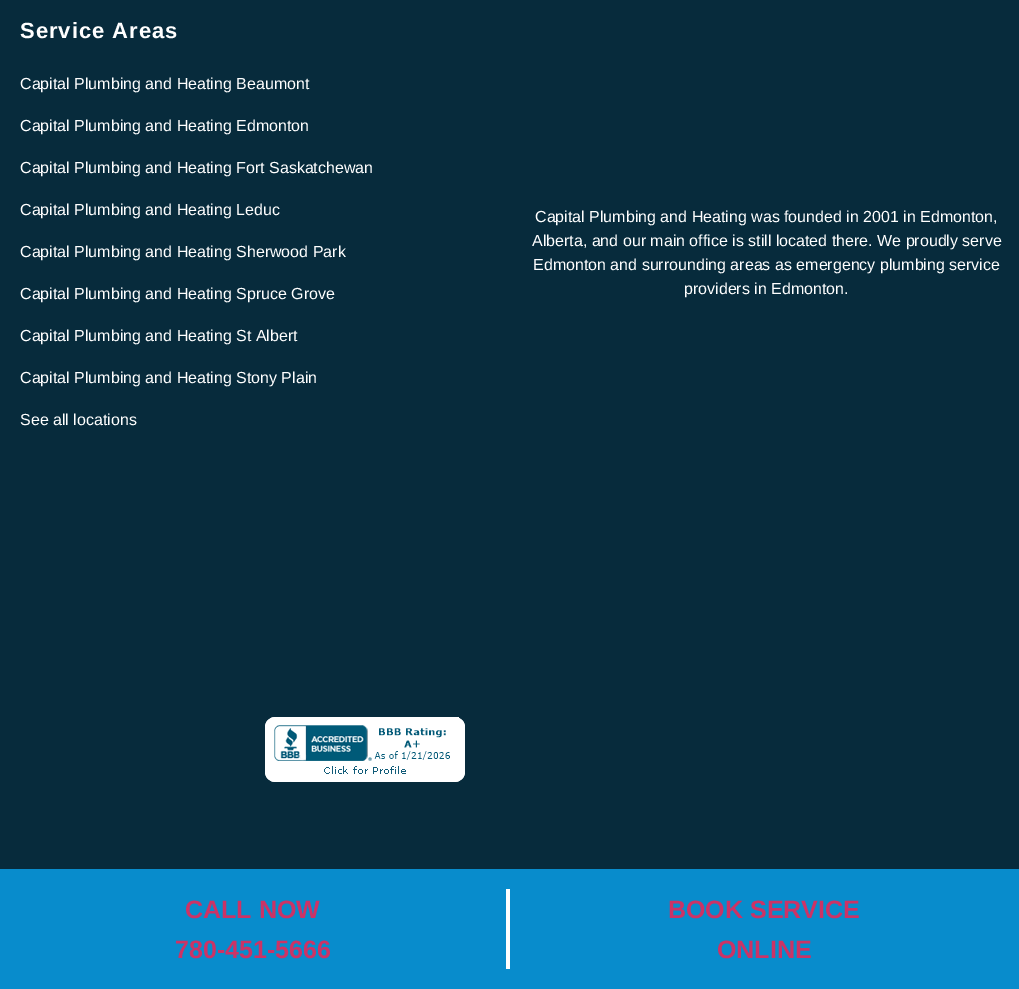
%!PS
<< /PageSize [1019 989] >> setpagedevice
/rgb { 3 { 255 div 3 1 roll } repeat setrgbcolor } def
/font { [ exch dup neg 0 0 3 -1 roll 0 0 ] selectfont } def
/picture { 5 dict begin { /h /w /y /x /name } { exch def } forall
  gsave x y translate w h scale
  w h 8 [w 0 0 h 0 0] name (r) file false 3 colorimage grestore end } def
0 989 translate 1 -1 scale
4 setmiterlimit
7 43 60 rgb
0 0 1019 989 rectfill
(img/1.rgb) 265 717 200 65 picture
8 140 204 rgb
0 869 1019 120 rectfill
255 255 255 rgb
506 889 4 80 rectfill
/LiberationSans-Bold 22 font
20 38 moveto 1 0 (Service Areas) ashow
/LiberationSans-Regular 16 font
[
  [(Capital Plumbing and Heating Beaumont) 20 89]
  [(Capital Plumbing and Heating Edmonton) 20 131]
  [(Capital Plumbing and Heating Fort Saskatchewan) 20 173]
  [(Capital Plumbing and Heating Leduc) 20 215]
  [(Capital Plumbing and Heating Sherwood Park) 20 257]
  [(Capital Plumbing and Heating Spruce Grove) 20 299]
  [(Capital Plumbing and Heating St Albert) 20 341]
  [(Capital Plumbing and Heating Stony Plain) 20 383]
  [(See all locations) 20 425]
  [(Capital Plumbing and Heating was founded in 2001 in Edmonton,) 535 222]
  [(Alberta, and our main office is still located there. We proudly serve) 532 246]
  [(Edmonton and surrounding areas as emergency plumbing service) 533 270]
  [(providers in Edmonton.) 684 294]
] { aload pop moveto show } forall
/LiberationSans-Bold 25 font
204 51 102 rgb
[
  [(CALL NOW) 185 918]
  [(780-451-5666) 175 958]
  [(BOOK SERVICE) 668 918]
  [(ONLINE) 717 958]
] { aload pop moveto show } forall
showpage
